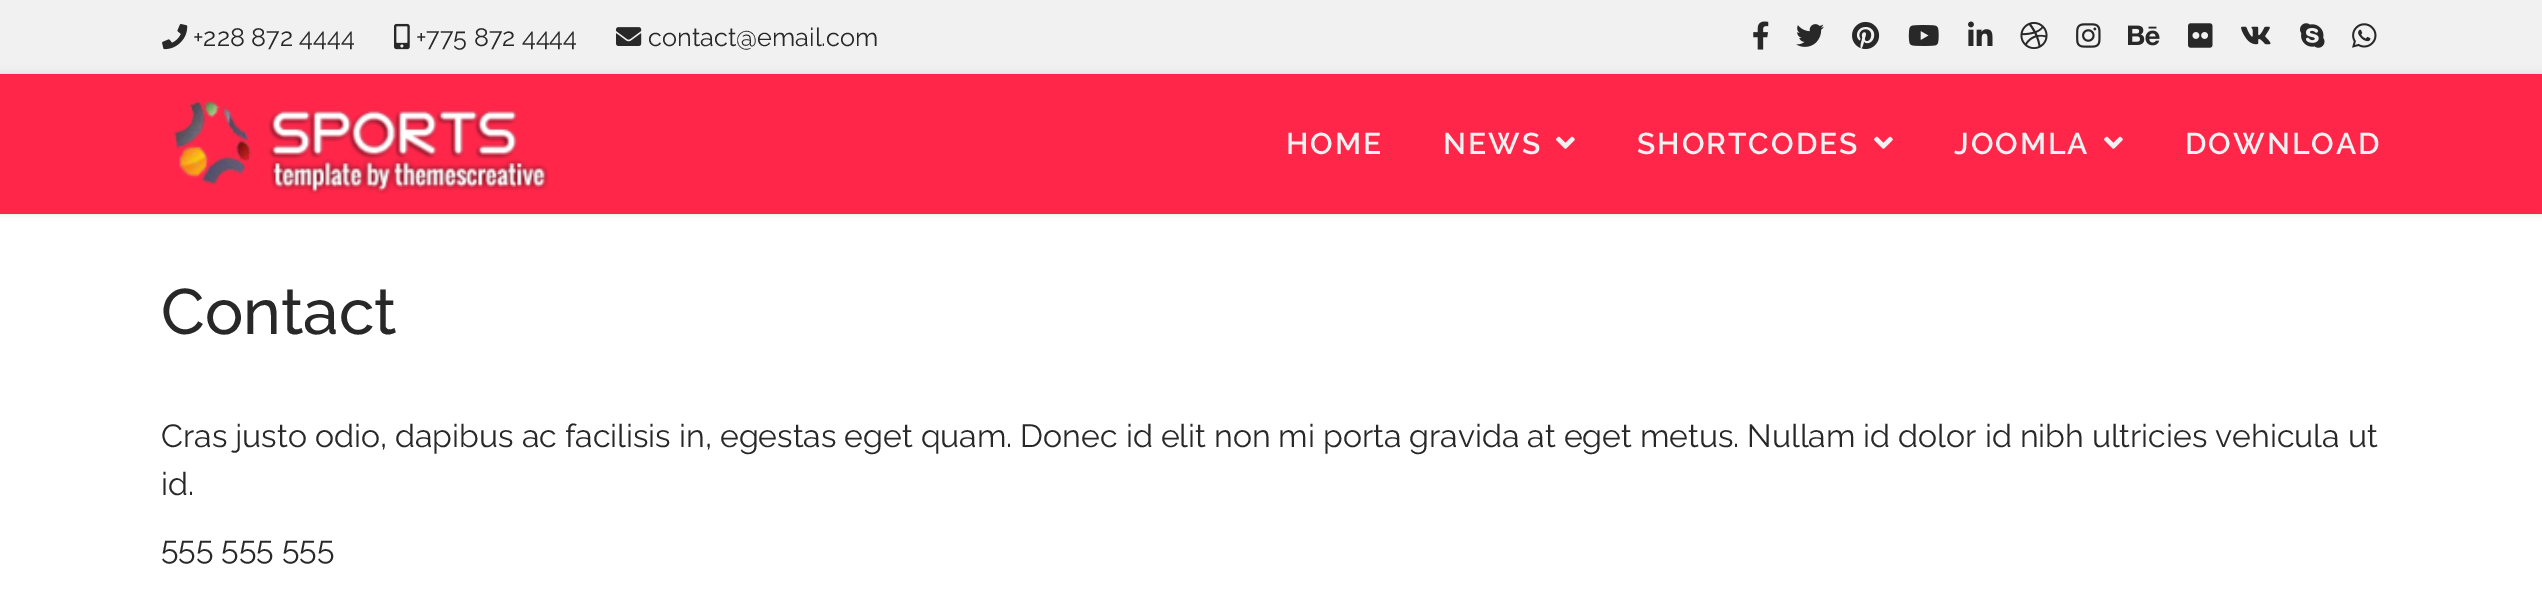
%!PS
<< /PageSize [2542 602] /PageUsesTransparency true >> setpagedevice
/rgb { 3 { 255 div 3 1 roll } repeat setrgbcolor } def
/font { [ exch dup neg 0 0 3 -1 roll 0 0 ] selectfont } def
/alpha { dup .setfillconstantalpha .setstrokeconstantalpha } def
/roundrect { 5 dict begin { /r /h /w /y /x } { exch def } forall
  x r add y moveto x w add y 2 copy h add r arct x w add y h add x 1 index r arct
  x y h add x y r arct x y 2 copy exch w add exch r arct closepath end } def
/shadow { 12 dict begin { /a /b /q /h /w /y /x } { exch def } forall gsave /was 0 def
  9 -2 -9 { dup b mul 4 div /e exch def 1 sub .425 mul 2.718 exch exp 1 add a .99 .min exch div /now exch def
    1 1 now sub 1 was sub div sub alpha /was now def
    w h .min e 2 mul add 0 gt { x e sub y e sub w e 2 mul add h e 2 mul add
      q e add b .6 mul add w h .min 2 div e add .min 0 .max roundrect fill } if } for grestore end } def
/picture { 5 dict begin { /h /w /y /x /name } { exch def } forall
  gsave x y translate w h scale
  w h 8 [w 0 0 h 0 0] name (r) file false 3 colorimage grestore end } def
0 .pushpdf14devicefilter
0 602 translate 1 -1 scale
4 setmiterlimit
255 255 255 rgb
0 0 2542 602 rectfill
241 241 241 rgb
0 0 2542 74 rectfill
(img/1.rgb) 162 24 26 26 picture
(img/2.rgb) 394 23 16 27 picture
(img/3.rgb) 616 27 26 19 picture
(img/4.rgb) 1753 21 16 29 picture
(img/5.rgb) 1796 24 28 23 picture
(img/6.rgb) 1852 21 28 29 picture
(img/7.rgb) 1908 25 31 21 picture
(img/8.rgb) 1968 21 25 25 picture
(img/9.rgb) 2020 22 28 27 picture
(img/10.rgb) 2076 23 25 25 picture
(img/11.rgb) 2128 25 32 21 picture
(img/12.rgb) 2188 23 25 25 picture
(img/13.rgb) 2241 26 30 19 picture
(img/14.rgb) 2300 23 25 25 picture
(img/15.rgb) 2352 23 25 25 picture
0 0 0 rgb
0 74 2542 140 0 4 0.1 shadow
255 38 74 rgb
0 74 2542 140 rectfill
(img/16.rgb) 174 100 375 94 picture
(img/17.rgb) 1556 136 19 13 picture
(img/17.rgb) 1874 136 19 13 picture
(img/17.rgb) 2104 136 19 13 picture
/Raleway-Regular 25.25 font
40 40 40 rgb
[
  [(+228 872 4444) 193 46]
  [(+775 872 4444) 416 46]
  [(contact@email.com) 648 46]
] { aload pop moveto show } forall
/Raleway-SemiBold 30 font
241 241 241 rgb
1286 154 moveto 2 0 (HOME) ashow
1443 154 moveto 2 0 (NEWS) ashow
1637 154 moveto 2 0 (SHORTCODES) ashow
1954 154 moveto 2 0 (JOOMLA) ashow
2185 154 moveto 2 0 (DOWNLOAD) ashow
/Raleway-Medium 64 font
40 40 40 rgb
161 334 moveto (Contact) show
/Raleway-Regular 32 font
[
  [(Cras justo odio, dapibus ac facilisis in, egestas eget quam. Donec id elit non mi porta gravida at eget metus. Nullam id dolor id nibh ultricies vehicula ut) 161 447]
  [(id.) 161 495]
  [(555 555 555) 161 559]
] { aload pop moveto show } forall
.poppdf14devicefilter showpage
